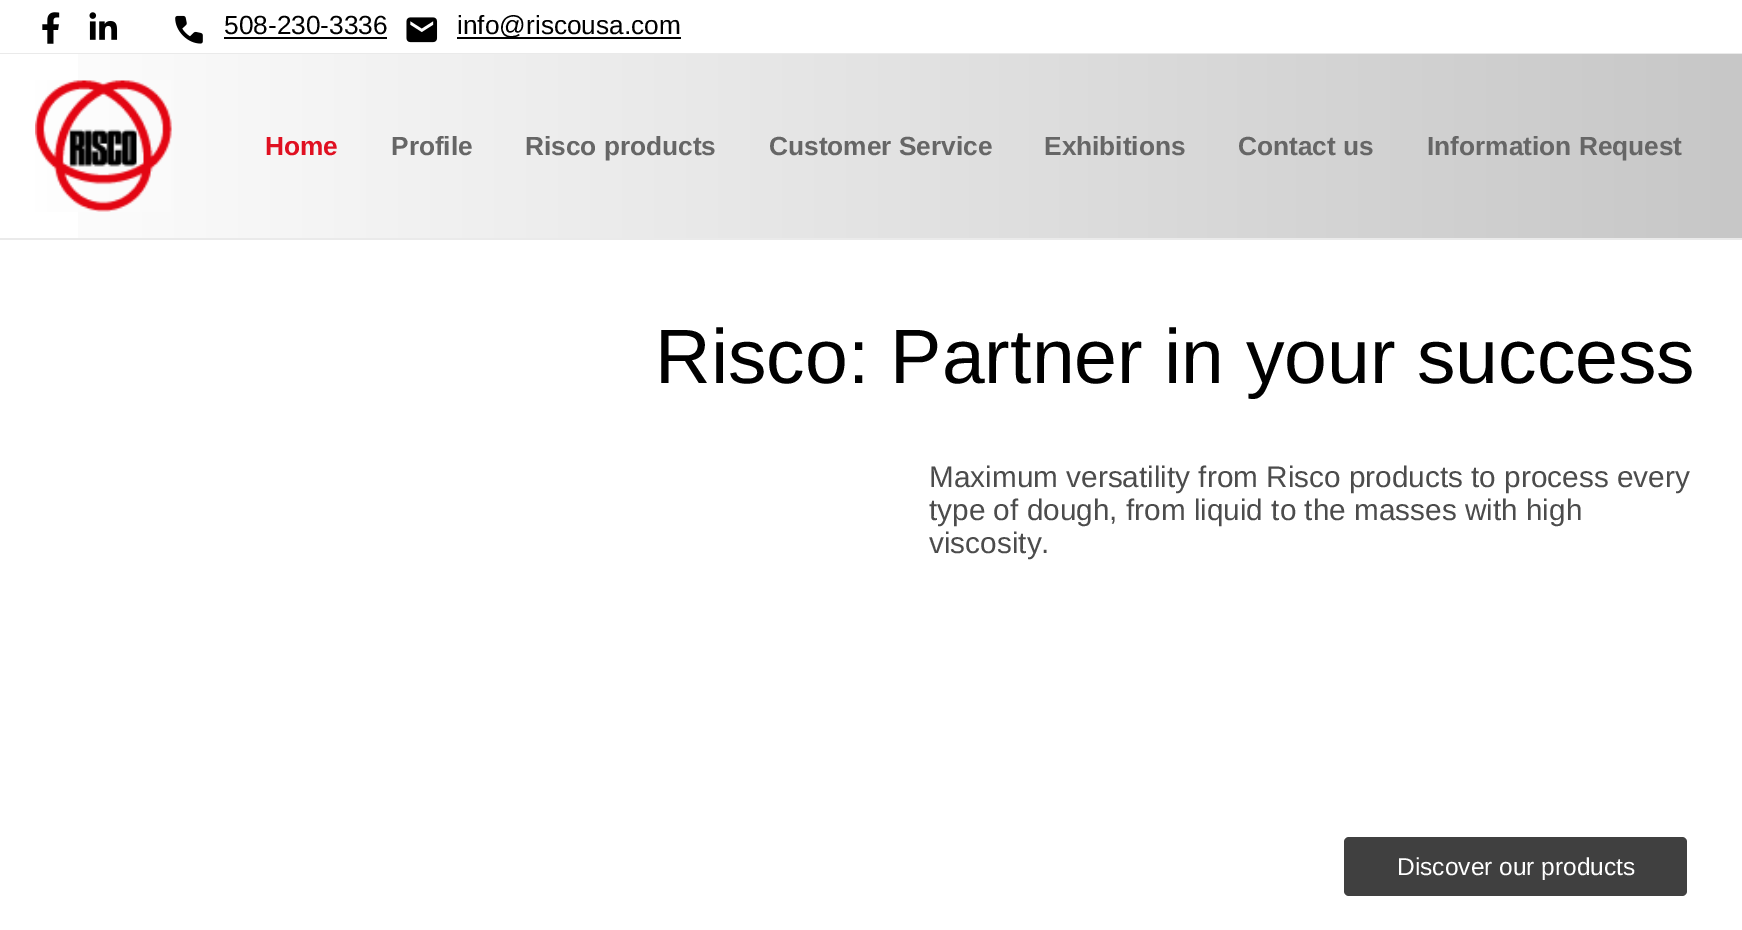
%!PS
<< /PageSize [1742 930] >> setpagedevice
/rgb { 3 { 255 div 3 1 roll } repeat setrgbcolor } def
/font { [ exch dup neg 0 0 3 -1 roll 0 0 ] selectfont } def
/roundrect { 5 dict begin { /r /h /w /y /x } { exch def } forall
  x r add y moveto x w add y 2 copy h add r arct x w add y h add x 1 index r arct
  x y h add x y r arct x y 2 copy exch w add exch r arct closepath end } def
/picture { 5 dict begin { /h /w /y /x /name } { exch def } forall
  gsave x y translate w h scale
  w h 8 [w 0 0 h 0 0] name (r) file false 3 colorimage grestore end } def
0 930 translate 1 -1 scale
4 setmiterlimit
255 255 255 rgb
0 0 1742 930 rectfill
234 234 234 rgb
0 53 1742 1 rectfill
(img/1.rgb) 42 12 18 32 picture
(img/2.rgb) 89 12 29 28 picture
(img/3.rgb) 175 15 28 29 picture
0 0 0 rgb
224 37 163 2 rectfill
(img/4.rgb) 406 17 32 26 picture
457 37 224 2 rectfill
gsave 78 54 moveto 1742 54 lineto 1742 238 lineto 78 238 lineto closepath clip newpath
<< /ShadingType 2 /ColorSpace /DeviceRGB /Coords [0 146 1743 146] /Extend [true true] /Function << /FunctionType 2 /Domain [0 1] /C0 [1 1 1] /C1 [0.78 0.78 0.78] /N 1 >> >> shfill grestore
234 234 234 rgb
0 238 1742 2 rectfill
(img/5.rgb) 35 80 137 132 picture
64 64 64 rgb
1344 837 343 59 5 roundrect fill
/LiberationSans-Regular 26.25 font
0 0 0 rgb
224 34 moveto (508-230-3336) show
457 34 moveto (info@riscousa.com) show
/LiberationSans-Bold 26.25 font
224 16 33 rgb
265 155 moveto (Home) show
102 102 102 rgb
[
  [(Profile) 391 155]
  [(Risco products) 525 155]
  [(Customer Service) 769 155]
  [(Exhibitions) 1044 155]
  [(Contact us) 1238 155]
  [(Information Request) 1427 155]
] { aload pop moveto show } forall
/LiberationSans-Regular 77 font
0 0 0 rgb
655 383 moveto (Risco: Partner in your success) show
/LiberationSans-Regular 29.75 font
76 76 76 rgb
[
  [(Maximum versatility from Risco products to process every) 929 487]
  [(type of dough, from liquid to the masses with high) 929 520]
  [(viscosity.) 929 553]
] { aload pop moveto show } forall
/LiberationSans-Regular 24.5 font
255 255 255 rgb
1397 875 moveto (Discover our products) show
showpage
